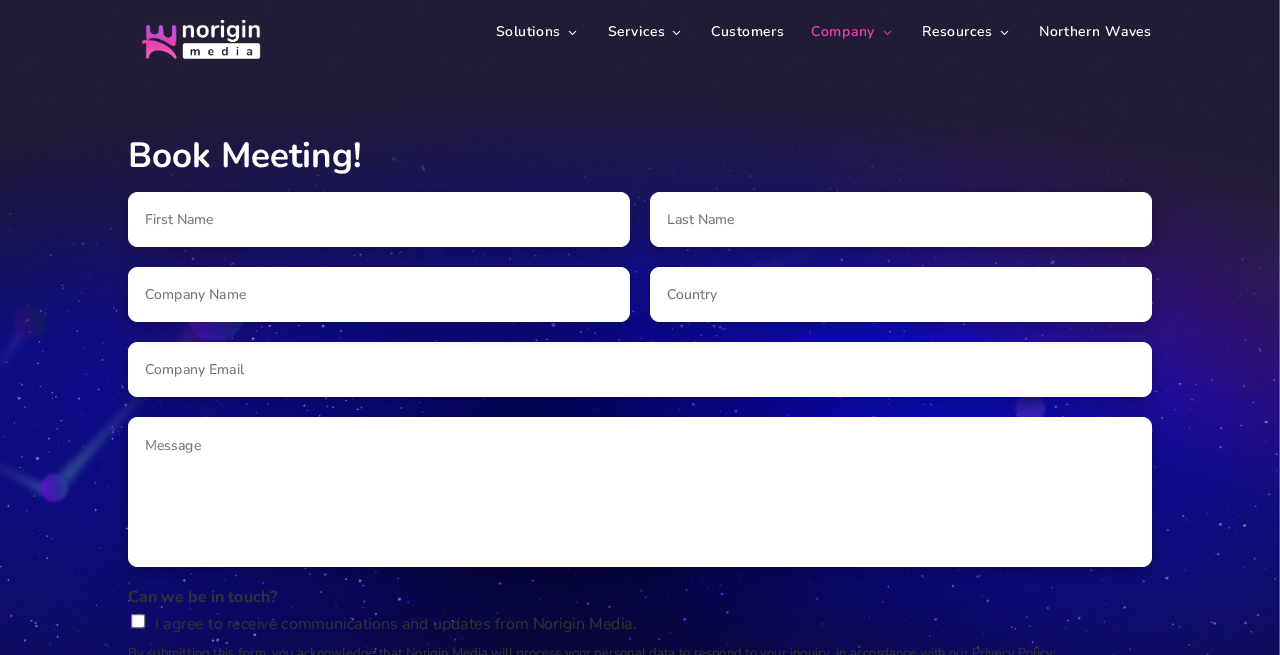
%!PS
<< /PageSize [1280 655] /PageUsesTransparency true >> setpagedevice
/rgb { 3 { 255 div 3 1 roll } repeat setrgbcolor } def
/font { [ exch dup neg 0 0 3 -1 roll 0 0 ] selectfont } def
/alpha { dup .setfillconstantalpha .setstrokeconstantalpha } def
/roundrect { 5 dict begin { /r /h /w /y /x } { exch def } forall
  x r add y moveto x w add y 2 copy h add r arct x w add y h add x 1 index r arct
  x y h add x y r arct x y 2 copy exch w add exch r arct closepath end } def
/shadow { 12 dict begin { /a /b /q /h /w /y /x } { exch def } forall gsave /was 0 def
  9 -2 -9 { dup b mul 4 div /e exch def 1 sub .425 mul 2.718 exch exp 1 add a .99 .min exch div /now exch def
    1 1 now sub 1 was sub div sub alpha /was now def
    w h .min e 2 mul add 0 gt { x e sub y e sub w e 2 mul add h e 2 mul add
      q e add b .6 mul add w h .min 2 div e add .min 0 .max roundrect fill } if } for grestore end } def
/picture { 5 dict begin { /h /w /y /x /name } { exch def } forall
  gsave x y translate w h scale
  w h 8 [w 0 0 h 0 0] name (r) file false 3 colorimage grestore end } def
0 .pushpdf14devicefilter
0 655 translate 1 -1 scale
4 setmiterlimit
255 255 255 rgb
0 0 1280 655 rectfill
(img/6.rgb) 0 0 1280 655 picture
(img/1.rgb) 141 19 120 40 picture
(img/2.rgb) 568 30 9 5 picture
(img/3.rgb) 672 30 9 5 picture
(img/4.rgb) 883 30 9 5 picture
(img/5.rgb) 1000 30 9 5 picture
0 0 0 rgb
128 197 502 55 10 10 0.3 shadow
255 255 255 rgb
128 192 502 55 10 roundrect fill
0 0 0 rgb
650 197 502 55 10 10 0.3 shadow
255 255 255 rgb
650 192 502 55 10 roundrect fill
0 0 0 rgb
128 347 1024 55 10 10 0.3 shadow
255 255 255 rgb
128 342 1024 55 10 roundrect fill
0 0 0 rgb
128 272 502 55 10 10 0.3 shadow
255 255 255 rgb
128 267 502 55 10 roundrect fill
0 0 0 rgb
650 272 502 55 10 10 0.3 shadow
255 255 255 rgb
650 267 502 55 10 roundrect fill
0 0 0 rgb
128 422 1024 150 10 10 0.3 shadow
255 255 255 rgb
128 417 1024 150 10 roundrect fill
131.5 614.5 13 13 1.5 roundrect gsave fill grestore
118 118 118 rgb
stroke
/Nunito-SemiBold 14 font
255 255 255 rgb
496 36 moveto 0.5 0 (Solutions) ashow
608 36 moveto 0.5 0 (Services) ashow
711 36 moveto 0.5 0 (Customers) ashow
232 65 175 rgb
811 36 moveto 0.5 0 (Company) ashow
255 255 255 rgb
922 36 moveto 0.5 0 (Resources) ashow
1039 36 moveto 0.5 0 (Northern Waves) ashow
/Nunito-Bold 35 font
128 167 moveto (Book Meeting!) show
/Nunito-Medium 14 font
117 117 117 rgb
[
  [(First Name) 145 224]
  [(Last Name) 667 224]
  [(Company Name) 145 299]
  [(Country) 667 299]
  [(Company Email) 145 374]
  [(Message) 145 450]
] { aload pop moveto show } forall
/Nunito-Bold 16 font
51 51 51 rgb
128 602 moveto (Can we be in touch?) show
/Nunito-Regular 16 font
155 629 moveto (I agree to receive communications and updates from Norigin Media.) show
/Nunito-Medium 13 font
128 657 moveto (By submitting this form, you acknowledge that Norigin Media will process your personal data to respond to your inquiry, in accordance with our Privacy Policy:) show
.poppdf14devicefilter showpage
